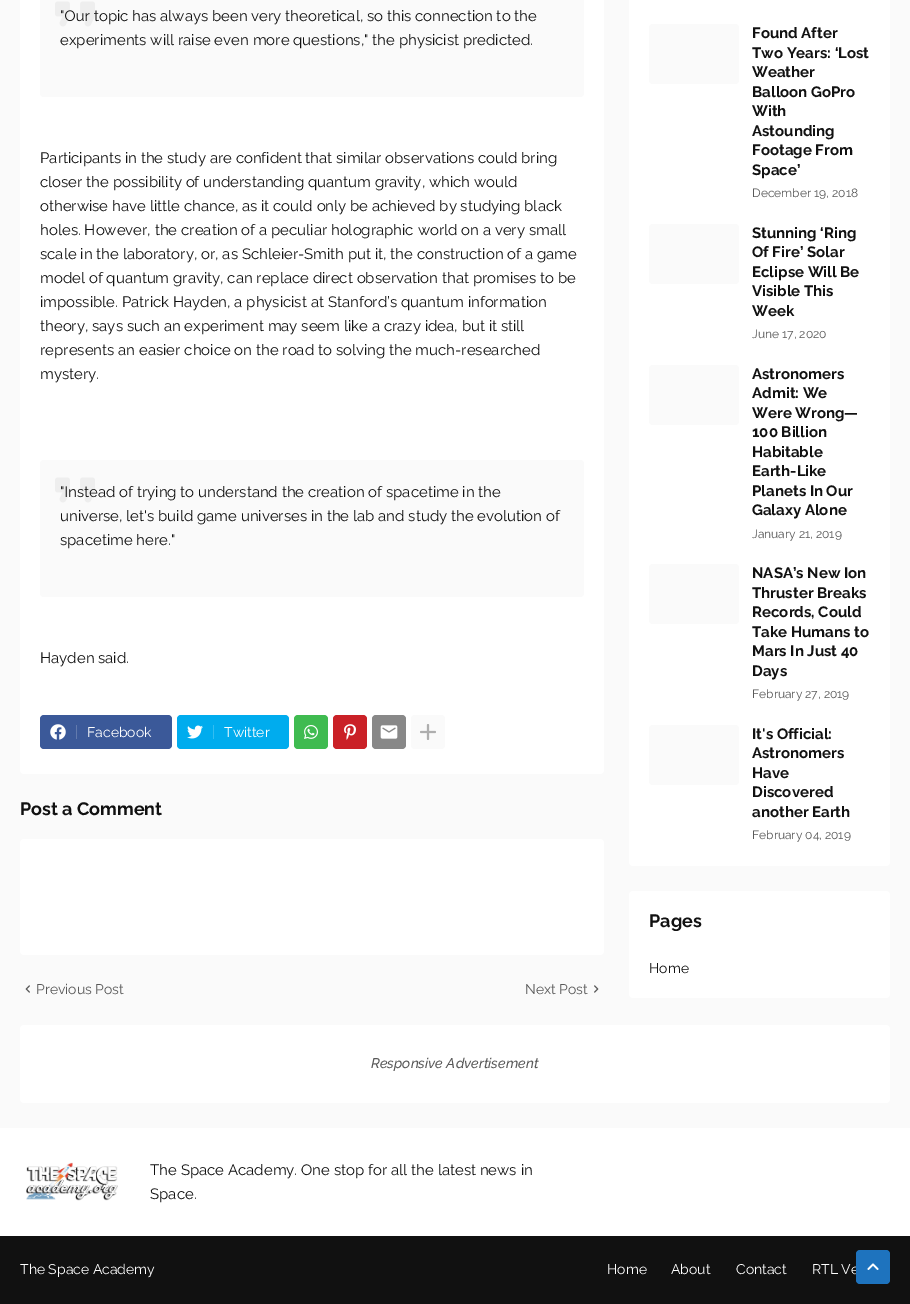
%!PS
<< /PageSize [910 1304] >> setpagedevice
/rgb { 3 { 255 div 3 1 roll } repeat setrgbcolor } def
/font { [ exch dup neg 0 0 3 -1 roll 0 0 ] selectfont } def
/roundrect { 5 dict begin { /r /h /w /y /x } { exch def } forall
  x r add y moveto x w add y 2 copy h add r arct x w add y h add x 1 index r arct
  x y h add x y r arct x y 2 copy exch w add exch r arct closepath end } def
/picture { 5 dict begin { /h /w /y /x /name } { exch def } forall
  gsave x y translate w h scale
  w h 8 [w 0 0 h 0 0] name (r) file false 3 colorimage grestore end } def
0 1304 translate 1 -1 scale
4 setmiterlimit
250 250 250 rgb
0 0 910 1304 rectfill
255 255 255 rgb
20 -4 584 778 4 roundrect fill
250 250 250 rgb
40 -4 544 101 4 roundrect fill
40 460 544 137 4 roundrect fill
59 89 153 rgb
40 715 132 34 4 roundrect fill
(img/3.rgb) 50 724 16 16 picture
98 122 173 rgb
76 725 1 14 rectfill
0 172 238 rgb
177 715 112 34 4 roundrect fill
(img/4.rgb) 187 725 16 14 picture
51 189 241 rgb
213 725 1 14 rectfill
63 187 80 rgb
294 715 34 34 4 roundrect fill
(img/5.rgb) 304 725 14 14 picture
202 33 39 rgb
333 715 34 34 4 roundrect fill
(img/6.rgb) 344 724 12 16 picture
136 136 136 rgb
372 715 34 34 4 roundrect fill
(img/7.rgb) 380 725 18 14 picture
250 250 250 rgb
411 715 34 34 4 roundrect fill
(img/8.rgb) 420 724 16 16 picture
255 255 255 rgb
20 839 584 116 4 roundrect fill
(img/9.rgb) 25 985 5 8 picture
(img/10.rgb) 594 985 5 8 picture
629 -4 261 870 4 roundrect fill
250 250 250 rgb
649 24 90 60 4 roundrect fill
649 224 90 60 4 roundrect fill
649 365 90 60 4 roundrect fill
649 564 90 60 4 roundrect fill
649 725 90 60 4 roundrect fill
255 255 255 rgb
629 891 261 107 4 roundrect fill
20 1025 870 78 4 roundrect fill
0 1128 910 108 rectfill
(img/11.rgb) 26 1162 92 39 picture
17 17 17 rgb
0 1236 910 68 rectfill
/Raleway-Regular 15 font
60 21 moveto ("Our topic has always been very theoretical, so this connection to the) show
(img/1.rgb) 55 1 40 26 picture
[
  [(experiments will raise even more questions," the physicist predicted.) 60 45]
  [(Participants in the study are confident that similar observations could bring) 40 163]
  [(closer the possibility of understanding quantum gravity, which would) 40 187]
  [(otherwise have little chance, as it could only be achieved by studying black) 40 211]
  [(holes. However, the creation of a peculiar holographic world on a very small) 40 235]
  [(scale in the laboratory, or, as Schleier-Smith put it, the construction of a game) 40 259]
  [(model of quantum gravity, can replace direct observation that promises to be) 40 283]
  [(impossible. Patrick Hayden, a physicist at Stanford’s quantum information) 40 307]
  [(theory, says such an experiment may seem like a crazy idea, but it still) 40 331]
  [(represents an easier choice on the road to solving the much-researched) 40 355]
  [(mystery.) 40 379]
  [("Instead of trying to understand the creation of spacetime in the) 60 497]
] { aload pop moveto show } forall
(img/2.rgb) 55 477 40 26 picture
[
  [(universe, let's build game universes in the lab and study the evolution of) 60 521]
  [(spacetime here.") 60 545]
  [(Hayden said.) 40 663]
] { aload pop moveto show } forall
/Raleway-Regular 14 font
255 255 255 rgb
87 737 moveto (Facebook) show
224 737 moveto (Twitter) show
/Raleway-Bold 18 font
17 17 17 rgb
20 815 moveto (Post a Comment) show
/Raleway-Regular 14 font
89 89 89 rgb
36 994 moveto (Previous Post) show
525 994 moveto (Next Post) show
/Raleway-Bold 15 font
17 17 17 rgb
[
  [(Found After) 752 38]
  [(Two Years: ‘Lost) 752 58]
  [(Weather) 752 77]
  [(Balloon GoPro) 752 97]
  [(With) 752 116]
  [(Astounding) 752 136]
  [(Footage From) 752 155]
  [(Space’) 752 175]
] { aload pop moveto show } forall
/Raleway-Regular 12 font
89 89 89 rgb
752 197 moveto (December 19, 2018) show
/Raleway-Bold 15 font
17 17 17 rgb
[
  [(Stunning ‘Ring) 752 238]
  [(Of Fire’ Solar) 752 257]
  [(Eclipse Will Be) 752 277]
  [(Visible This) 752 296]
  [(Week) 752 316]
] { aload pop moveto show } forall
/Raleway-Regular 12 font
89 89 89 rgb
752 338 moveto (June 17, 2020) show
/Raleway-Bold 15 font
17 17 17 rgb
[
  [(Astronomers) 752 379]
  [(Admit: We) 752 398]
  [(Were Wrong—) 752 418]
  [(100 Billion) 752 437]
  [(Habitable) 752 457]
  [(Earth-Like) 752 476]
  [(Planets In Our) 752 496]
  [(Galaxy Alone) 752 515]
] { aload pop moveto show } forall
/Raleway-Regular 12 font
89 89 89 rgb
752 538 moveto (January 21, 2019) show
/Raleway-Bold 15 font
17 17 17 rgb
[
  [(NASA’s New Ion) 752 578]
  [(Thruster Breaks) 752 598]
  [(Records, Could) 752 617]
  [(Take Humans to) 752 637]
  [(Mars In Just 40) 752 656]
  [(Days) 752 676]
] { aload pop moveto show } forall
/Raleway-Regular 12 font
89 89 89 rgb
752 698 moveto (February 27, 2019) show
/Raleway-Bold 15 font
17 17 17 rgb
[
  [(It's Official:) 752 739]
  [(Astronomers) 752 758]
  [(Have) 752 778]
  [(Discovered) 752 797]
  [(another Earth) 752 817]
] { aload pop moveto show } forall
/Raleway-Regular 12 font
89 89 89 rgb
752 839 moveto (February 04, 2019) show
/Raleway-Bold 18 font
17 17 17 rgb
649 927 moveto (Pages) show
/Raleway-Regular 14 font
649 973 moveto (Home) show
/Raleway-MediumItalic 14 font
89 89 89 rgb
371 1068 moveto (Responsive Advertisement) show
/Raleway-Regular 15 font
17 17 17 rgb
150 1175 moveto (The Space Academy. One stop for all the latest news in) show
150 1199 moveto (Space.) show
/Raleway-Regular 14 font
255 255 255 rgb
[
  [(The Space Academy) 20 1274]
  [(Home) 607 1274]
  [(About) 671 1274]
  [(Contact) 736 1274]
  [(RTL Ve) 812 1274]
] { aload pop moveto show } forall
30 115 190 rgb
856 1250 34 34 4 roundrect fill
(img/12.rgb) 867 1263 12 7 picture
showpage
